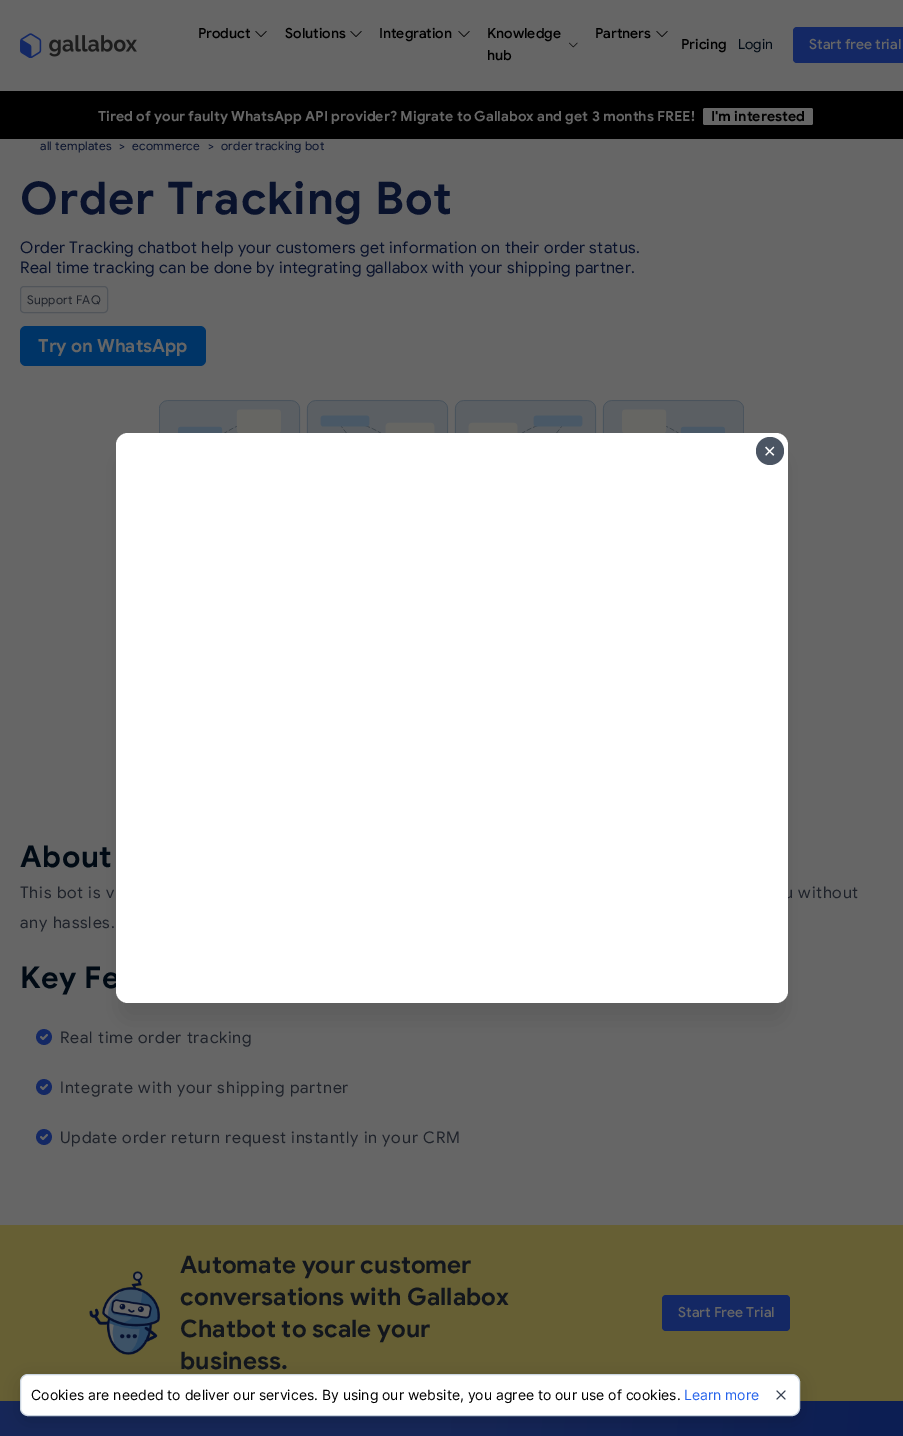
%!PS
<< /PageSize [903 1436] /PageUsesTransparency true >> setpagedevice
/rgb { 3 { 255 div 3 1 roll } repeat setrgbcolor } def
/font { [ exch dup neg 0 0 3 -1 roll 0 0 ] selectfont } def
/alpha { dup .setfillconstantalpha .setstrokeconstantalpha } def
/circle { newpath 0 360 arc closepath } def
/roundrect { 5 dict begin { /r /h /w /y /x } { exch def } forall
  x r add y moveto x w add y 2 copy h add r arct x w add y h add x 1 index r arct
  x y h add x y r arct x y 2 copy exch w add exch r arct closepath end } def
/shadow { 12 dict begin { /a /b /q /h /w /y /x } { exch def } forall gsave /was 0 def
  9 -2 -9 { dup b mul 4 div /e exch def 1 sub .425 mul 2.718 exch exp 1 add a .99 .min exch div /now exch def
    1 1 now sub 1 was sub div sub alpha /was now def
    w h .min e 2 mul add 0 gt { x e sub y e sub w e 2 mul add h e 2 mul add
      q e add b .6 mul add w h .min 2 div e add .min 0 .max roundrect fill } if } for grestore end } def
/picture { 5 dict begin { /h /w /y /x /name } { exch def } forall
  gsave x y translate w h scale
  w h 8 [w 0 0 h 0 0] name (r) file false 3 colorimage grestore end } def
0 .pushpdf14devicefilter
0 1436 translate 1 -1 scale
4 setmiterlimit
102 102 102 rgb
0 0 903 1436 rectfill
(img/1.rgb) 20 33 117 25 picture
(img/2.rgb) 255 31 12 6 picture
(img/2.rgb) 350 31 12 6 picture
(img/2.rgb) 458 31 12 6 picture
(img/3.rgb) 569 42 9 6 picture
(img/2.rgb) 656 31 12 6 picture
20 40 100 rgb
793 27 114 36 4 roundrect fill
0 0 0 rgb
0 91 903 48 rectfill
102 102 102 rgb
703 108 110 17 2 roundrect fill
81 85 90 rgb
20.5 286.5 87 26 3.5 roundrect stroke
0 52 102 rgb
20 326 186 40 6 roundrect fill
(img/4.rgb) 159 400 585 33 picture
(img/5.rgb) 36 1029 16 16 picture
(img/5.rgb) 36 1079 16 16 picture
(img/5.rgb) 36 1129 16 16 picture
102 95 52 rgb
0 1225 903 176 rectfill
(img/6.rgb) 89 1271 71 84 picture
20 40 100 rgb
662 1295 128 36 4 roundrect fill
gsave 0 1401 moveto 903 1401 lineto 903 1436 lineto 0 1436 lineto closepath clip newpath
<< /ShadingType 2 /ColorSpace /DeviceRGB /Coords [-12 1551 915 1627] /Extend [true true] /Function << /FunctionType 3 /Domain [0 1] /Functions [<< /FunctionType 2 /Domain [0 1] /C0 [0.086 0.149 0.345] /C1 [0.086 0.149 0.345] /N 1 >> << /FunctionType 2 /Domain [0 1] /C0 [0.086 0.149 0.345] /C1 [0.043 0.114 0.325] /N 1 >>] /Bounds [0.48] /Encode [0 1 0 1] >> >> shfill grestore
0 0 0 rgb
121 458 662 560 7 12.5 0.1 shadow
20 1379 780 42 8 10 0.15 shadow
255 255 255 rgb
20.5 1374.5 779 41 7.5 roundrect gsave fill grestore
203 213 224 rgb
stroke
(img/7.rgb) 776 1390 10 10 picture
/GoogleSans-Medium 14 font
0 0 0 rgb
[
  [(Product) 198 38]
  [(Solutions) 285 38]
  [(Integration) 379 38]
  [(Knowledge) 487 38]
  [(hub) 487 60]
  [(Partners) 595 38]
  [(Pricing) 681 49]
] { aload pop moveto show } forall
/GoogleSans-Regular 14 font
0 10 20 rgb
738 49 moveto (Login) show
/GoogleSans-Medium 14 font
102 102 102 rgb
809 49 moveto (Start free trial) show
/GoogleSans-Bold 14 font
98 121 moveto (Tired of your faulty WhatsApp API provider? Migrate to Gallabox and get 3 months FREE!) show
0 0 0 rgb
711 121 moveto (I'm interested) show
/GoogleSans-Regular 12 font
9 18 44 rgb
40 150 moveto 0.25 0 (all templates) ashow
119 150 moveto 0.25 0 (>) ashow
132 150 moveto 0.25 0 (ecommerce) ashow
208 150 moveto 0.25 0 (>) ashow
221 150 moveto 0.25 0 (order tracking bot) ashow
/GoogleSans-Bold 45 font
20 214 moveto 0.9 0 (Order Tracking Bot) ashow
/GoogleSans-Regular 16 font
20 253 moveto 0.32 0 (Order Tracking chatbot help your customers get information on their order status.) ashow
20 273 moveto 0.32 0 (Real time tracking can be done by integrating gallabox with your shipping partner.) ashow
/GoogleSans-Regular 12 font
30 34 42 rgb
27 304 moveto 0.25 0 (Support FAQ) ashow
/GoogleSans-Bold 18 font
102 102 102 rgb
38 352 moveto (Try on WhatsApp) show
/GoogleSans-Bold 30 font
0 10 20 rgb
20 867 moveto 0.5 0 (About) ashow
/GoogleSans-Regular 16 font
30 34 42 rgb
20 898 moveto 0.8 0 (This bot is v) ashow
784 898 moveto 0.8 0 (u without) ashow
20 928 moveto 0.8 0 (any hassles.) ashow
/GoogleSans-Bold 30 font
0 10 20 rgb
20 988 moveto 0.5 0 (Key Fe) ashow
/GoogleSans-Regular 16 font
30 34 42 rgb
60 1043 moveto 0.8 0 (Real time order tracking) ashow
60 1093 moveto 0.8 0 (Integrate with your shipping partner) ashow
60 1143 moveto 0.8 0 (Update order return request instantly in your CRM) ashow
/GoogleSans-Bold 24 font
18 22 29 rgb
[
  [(Automate your customer) 180 1273]
  [(conversations with Gallabox) 180 1305]
  [(Chatbot to scale your) 180 1337]
  [(business.) 180 1369]
] { aload pop moveto show } forall
/GoogleSans-Medium 14 font
102 102 102 rgb
678 1317 moveto (Start Free Trial) show
255 255 255 rgb
116 433 672 570 12 roundrect fill
75 85 99 rgb
770 451 14 circle fill
/DejaVuSans-Regular 16 font
255 255 255 rgb
763 457 moveto (✕) show
/Inter-Regular 14 font
0 0 0 rgb
31 1400 moveto (Cookies are needed to deliver our services. By using our website, you agree to our use of cookies.) show
37 99 235 rgb
684 1400 moveto (Learn more) show
.poppdf14devicefilter showpage
